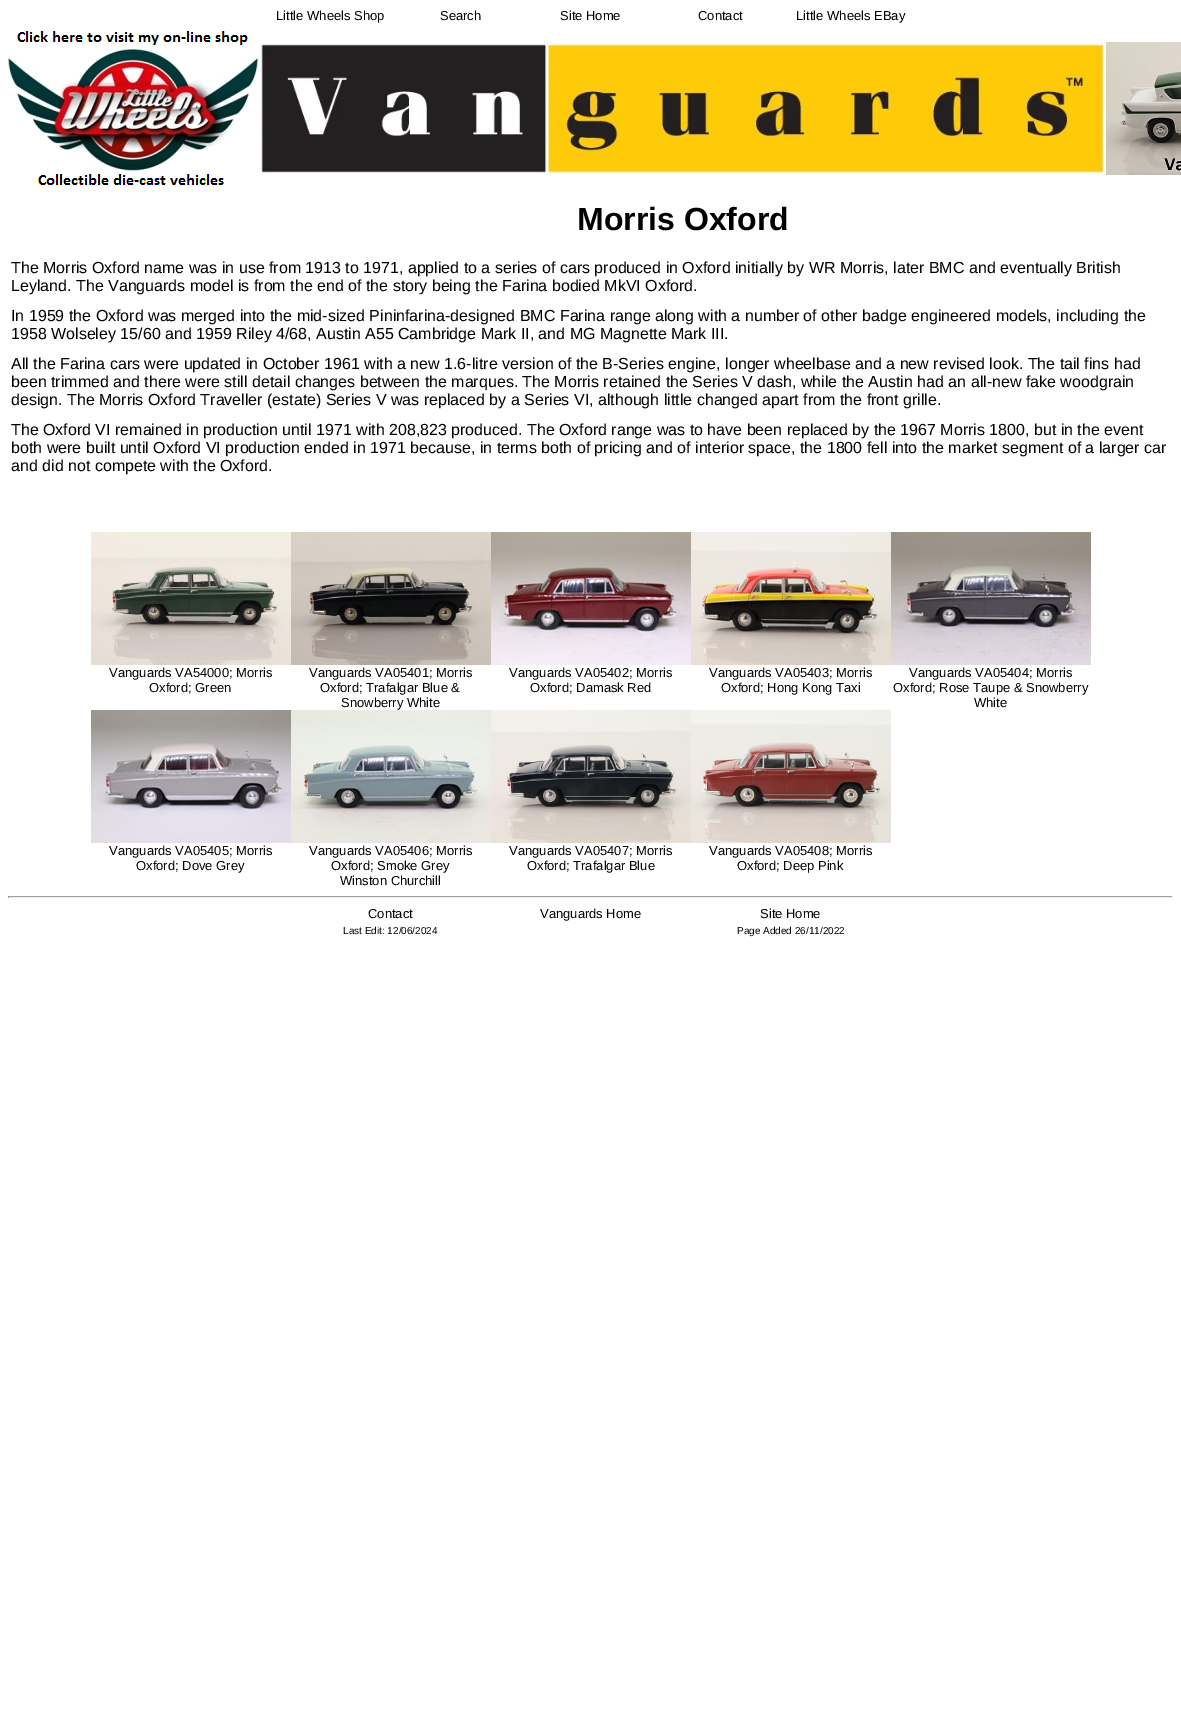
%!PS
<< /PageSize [1181 1730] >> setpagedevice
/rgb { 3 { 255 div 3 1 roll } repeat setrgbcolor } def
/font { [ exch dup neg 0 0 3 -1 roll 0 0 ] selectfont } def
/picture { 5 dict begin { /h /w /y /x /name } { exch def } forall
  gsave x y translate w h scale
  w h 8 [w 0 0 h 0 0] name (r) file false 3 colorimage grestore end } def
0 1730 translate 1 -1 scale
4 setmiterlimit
255 255 255 rgb
0 0 1181 1730 rectfill
(img/1.rgb) 8 31 250 154 picture
(img/2.rgb) 261 42 845 133 picture
(img/3.rgb) 1106 42 75 133 picture
(img/4.rgb) 91 532 200 133 picture
(img/5.rgb) 291 532 200 133 picture
(img/6.rgb) 491 532 200 133 picture
(img/7.rgb) 691 532 200 133 picture
(img/8.rgb) 891 532 200 133 picture
(img/9.rgb) 91 710 200 133 picture
(img/10.rgb) 291 710 200 133 picture
(img/11.rgb) 491 710 200 133 picture
(img/12.rgb) 691 710 200 133 picture
[
  [8 896 1165 1 159 159 159]
  [1172 896 1 2 238 238 238]
  [8 897 1165 1 238 238 238]
  [8 896 1 2 159 159 159]
] { aload pop rgb rectfill } forall
/LiberationSans-Regular 13 font
0 0 0 rgb
[
  [(Little Wheels Shop) 276 20]
  [(Search) 440 20]
  [(Site Home) 560 20]
  [(Contact) 698 20]
  [(Little Wheels EBay) 796 20]
] { aload pop moveto show } forall
/LiberationSans-Bold 32 font
577 230 moveto (Morris Oxford) show
/LiberationSans-Regular 16 font
[
  [(The Morris Oxford name was in use from 1913 to 1971, applied to a series of cars produced in Oxford initially by WR Morris, later BMC and eventually British) 11 273]
  [(Leyland. The Vanguards model is from the end of the story being the Farina bodied MkVI Oxford.) 11 291]
  [(In 1959 the Oxford was merged into the mid-sized Pininfarina-designed BMC Farina range along with a number of other badge engineered models, including the) 11 321]
  [(1958 Wolseley 15/60 and 1959 Riley 4/68, Austin A55 Cambridge Mark II, and MG Magnette Mark III.) 11 339]
  [(All the Farina cars were updated in October 1961 with a new 1.6-litre version of the B-Series engine, longer wheelbase and a new revised look. The tail fins had) 11 369]
  [(been trimmed and there were still detail changes between the marques. The Morris retained the Series V dash, while the Austin had an all-new fake woodgrain) 11 387]
  [(design. The Morris Oxford Traveller \(estate\) Series V was replaced by a Series VI, although little changed apart from the front grille.) 11 405]
  [(The Oxford VI remained in production until 1971 with 208,823 produced. The Oxford range was to have been replaced by the 1967 Morris 1800, but in the event) 11 435]
  [(both were built until Oxford VI production ended in 1971 because, in terms both of pricing and of interior space, the 1800 fell into the market segment of a larger car) 11 453]
  [(and did not compete with the Oxford.) 11 471]
] { aload pop moveto show } forall
/LiberationSans-Regular 13 font
[
  [(Vanguards VA54000; Morris) 109 677]
  [(Oxford; Green) 149 692]
  [(Vanguards VA05401; Morris) 309 677]
  [(Oxford; Trafalgar Blue &) 320 692]
  [(Snowberry White) 341 707]
  [(Vanguards VA05402; Morris) 509 677]
  [(Oxford; Damask Red) 530 692]
  [(Vanguards VA05403; Morris) 709 677]
  [(Oxford; Hong Kong Taxi) 721 692]
  [(Vanguards VA05404; Morris) 909 677]
  [(Oxford; Rose Taupe & Snowberry) 893 692]
  [(White) 974 707]
  [(Vanguards VA05405; Morris) 109 855]
  [(Oxford; Dove Grey) 136 870]
  [(Vanguards VA05406; Morris) 309 855]
  [(Oxford; Smoke Grey) 331 870]
  [(Winston Churchill) 340 885]
  [(Vanguards VA05407; Morris) 509 855]
  [(Oxford; Trafalgar Blue) 527 870]
  [(Vanguards VA05408; Morris) 709 855]
  [(Oxford; Deep Pink) 737 870]
  [(Contact) 368 918]
  [(Vanguards Home) 540 918]
  [(Site Home) 760 918]
] { aload pop moveto show } forall
/LiberationSans-Regular 10 font
343 934 moveto (Last Edit: 12/06/2024) show
737 934 moveto (Page Added 26/11/2022) show
showpage
